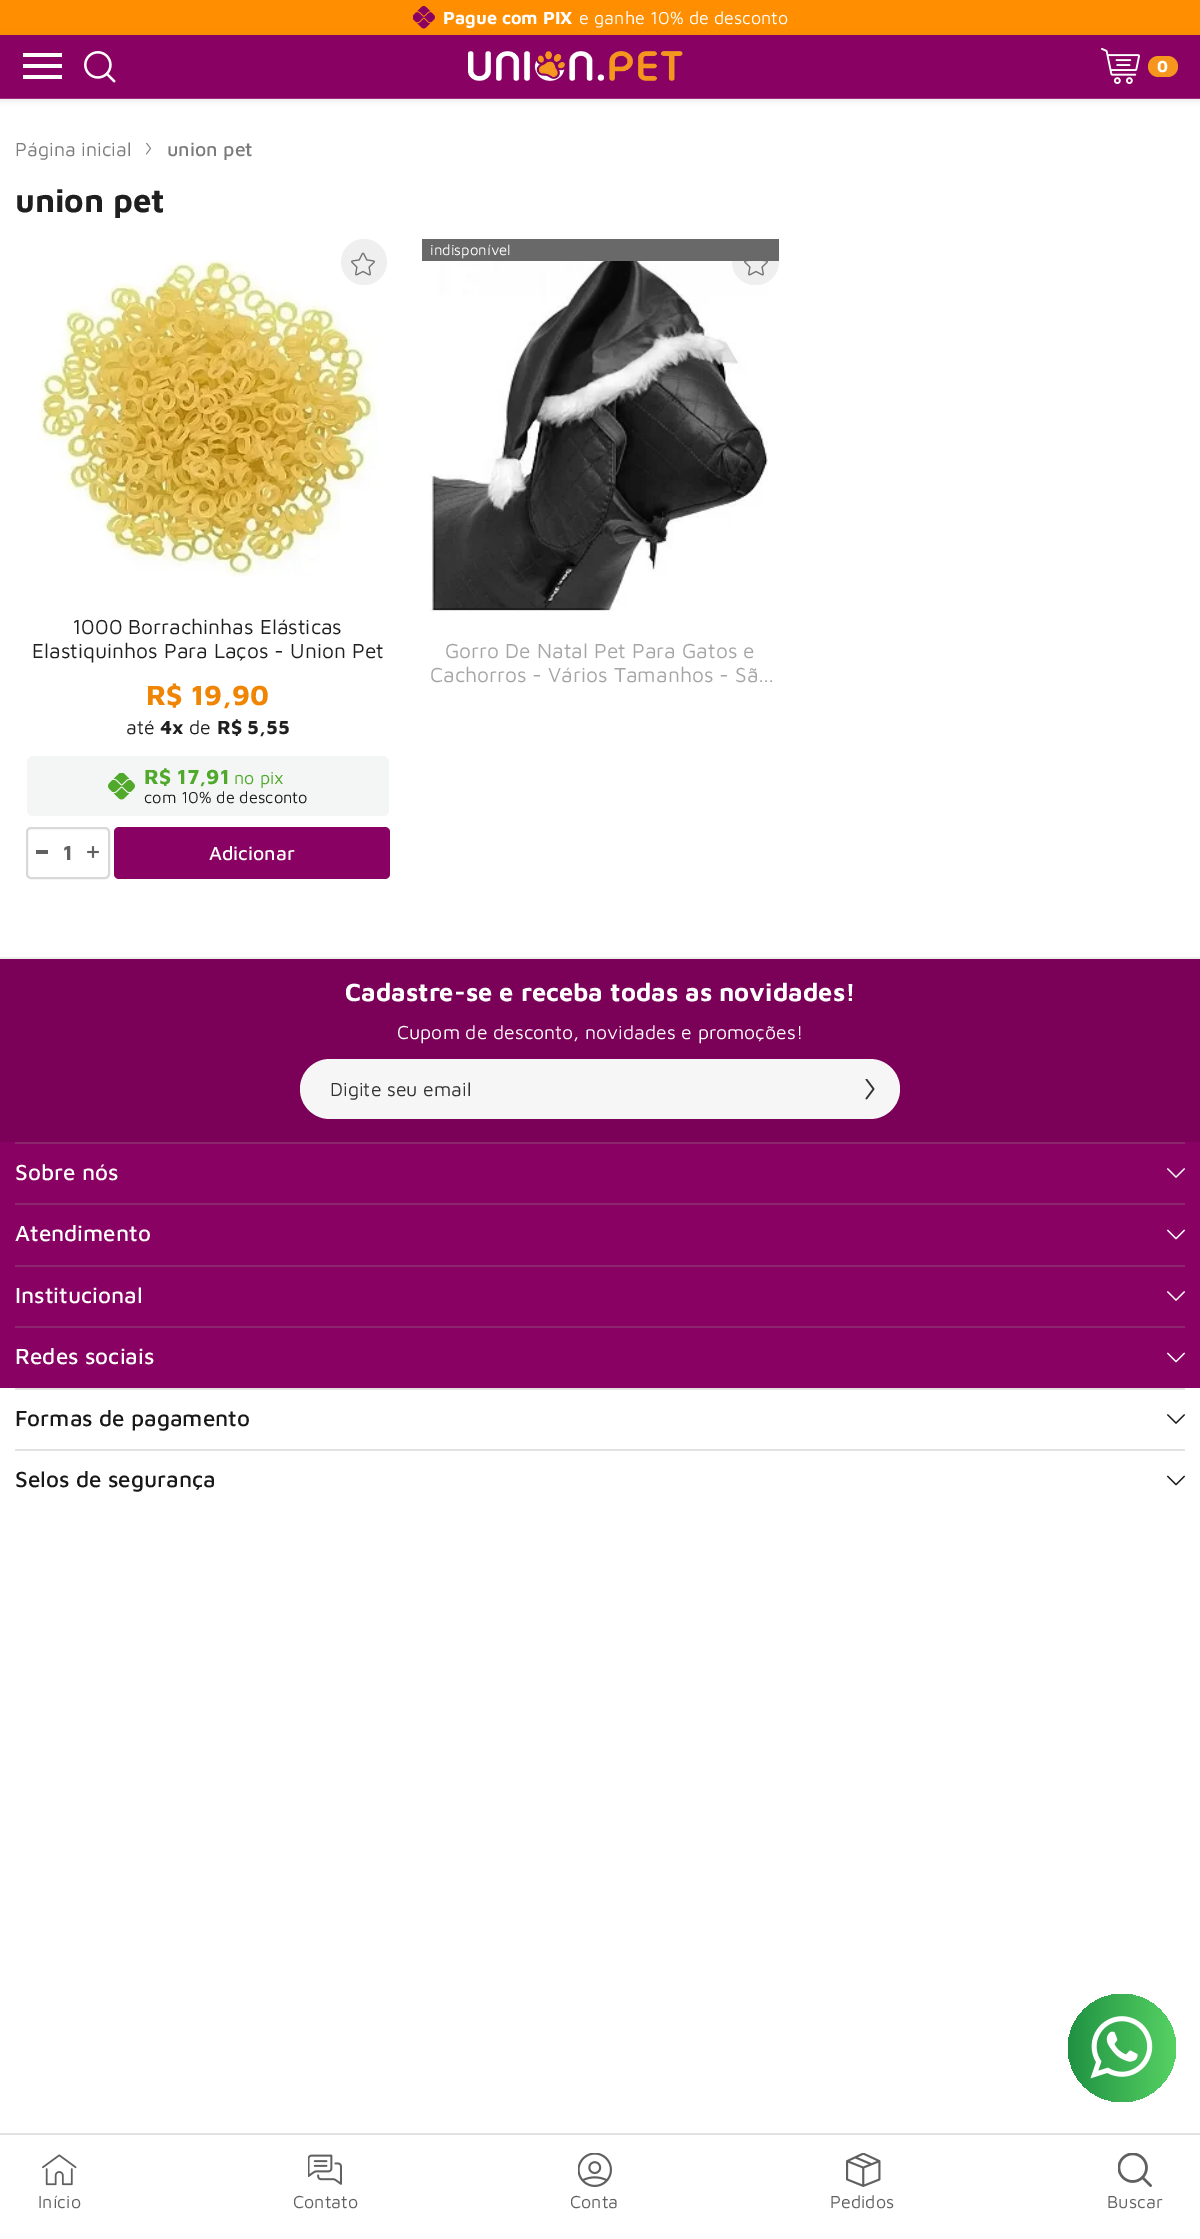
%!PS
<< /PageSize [1200 2239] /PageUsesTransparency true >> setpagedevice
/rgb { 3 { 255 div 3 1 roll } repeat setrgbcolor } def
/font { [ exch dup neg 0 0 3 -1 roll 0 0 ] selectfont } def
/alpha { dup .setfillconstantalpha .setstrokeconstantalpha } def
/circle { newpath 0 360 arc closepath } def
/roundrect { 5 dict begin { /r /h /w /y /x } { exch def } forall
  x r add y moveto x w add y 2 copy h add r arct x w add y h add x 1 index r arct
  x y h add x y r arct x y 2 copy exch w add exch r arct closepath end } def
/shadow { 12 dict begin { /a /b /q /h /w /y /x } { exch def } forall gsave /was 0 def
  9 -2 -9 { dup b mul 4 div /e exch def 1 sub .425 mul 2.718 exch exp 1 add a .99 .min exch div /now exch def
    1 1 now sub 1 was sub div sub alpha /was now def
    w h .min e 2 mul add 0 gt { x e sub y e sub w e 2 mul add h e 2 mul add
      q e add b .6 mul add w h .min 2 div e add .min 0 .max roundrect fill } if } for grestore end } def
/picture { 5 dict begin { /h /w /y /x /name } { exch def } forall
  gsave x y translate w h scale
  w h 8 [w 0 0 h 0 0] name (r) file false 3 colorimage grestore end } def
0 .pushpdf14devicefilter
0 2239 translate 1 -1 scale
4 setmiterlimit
255 255 255 rgb
0 0 1200 2239 rectfill
255 142 0 rgb
0 0 1200 35 rectfill
(img/1.rgb) 413 6 22 23 picture
82 82 82 rgb
0 36 1200 65 0 3 0.13 shadow
[
  [0 35 1200 64 137 1 99]
] { aload pop rgb rectfill } forall
0.19 alpha
[
  [0 98 1200 1 239 239 239]
] { aload pop rgb rectfill } forall
1 alpha
[
  [23 75 39 4 255 255 255]
  [23 64 39 4 255 255 255]
  [23 53 39 4 255 255 255]
] { aload pop rgb rectfill } forall
(img/2.rgb) 84 51 32 32 picture
(img/3.rgb) 468 51 215 30 picture
(img/4.rgb) 1101 48 39 36 picture
246 150 30 rgb
1148 56 30 21 10.5 roundrect fill
(img/5.rgb) 146 143 5 12 picture
(img/7.rgb) 430 261 338 351 picture
239 239 239 rgb
732 239 47 46 23 roundrect fill
105 105 105 rgb
422 239 357 22 rectfill
(img/6.rgb) 744 261 24 15 picture
(img/9.rgb) 38 260 340 317 picture
239 239 239 rgb
364 262 23 circle fill
(img/8.rgb) 351 252 24 24 picture
243 246 244 rgb
27 756 362 60 6 roundrect fill
(img/10.rgb) 108 773 27 27 picture
216 216 216 rgb
2 setlinewidth
27 828 82 50 4 roundrect stroke
97 97 97 rgb
36 850 12 4 rectfill
(img/11.rgb) 87 846 12 12 picture
137 1 99 rgb
114 827 276 52 5 roundrect fill
239 239 239 rgb
0 957 1200 2 rectfill
122 0 88 rgb
0 959 1200 183 rectfill
246 246 246 rgb
300 1059 600 60 30 roundrect fill
(img/12.rgb) 865 1079 10 21 picture
137 1 99 rgb
0 1142 1200 246 rectfill
139 38 111 rgb
15 1142 1170 2 rectfill
(img/13.rgb) 1167 1168 18 10 picture
15 1203 1170 2 rectfill
(img/14.rgb) 1167 1229 18 11 picture
15 1265 1170 2 rectfill
(img/13.rgb) 1167 1291 18 10 picture
15 1326 1170 2 rectfill
(img/14.rgb) 1167 1352 18 11 picture
226 226 226 rgb
15 1388 1170 2 rectfill
(img/15.rgb) 1167 1414 18 10 picture
15 1449 1170 2 rectfill
(img/16.rgb) 1167 1475 18 11 picture
gsave 1122 2048 54 circle clip newpath
<< /ShadingType 2 /ColorSpace /DeviceRGB /Coords [1068 2048 1176 2048] /Extend [true true] /Function << /FunctionType 2 /Domain [0 1] /C0 [0.125 0.569 0.259] /C1 [0.337 0.824 0.388] /N 1 >> >> shfill grestore
(img/17.rgb) 1090 2016 63 63 picture
0 2133 1200 2 rectfill
(img/18.rgb) 42 2154 35 32 picture
(img/19.rgb) 308 2154 34 31 picture
(img/20.rgb) 578 2153 34 34 picture
(img/21.rgb) 846 2153 35 34 picture
(img/22.rgb) 1118 2153 34 34 picture
/MavenPro-Bold 18 font
255 255 255 rgb
443 24 moveto (Pague com PIX) show
/MavenPro-Regular 18 font
579 24 moveto (e ganhe 10% de desconto) show
/MavenPro-Bold 16.5 font
1157 72 moveto (0) show
/MavenPro-Regular 19.5 font
123 123 123 rgb
15 156 moveto (Página inicial) show
/MavenPro-Medium 19.5 font
167 156 moveto (union pet) show
/MavenPro-Bold 33 font
32 31 31 rgb
15 212 moveto (union pet) show
/MavenPro-Regular 15 font
255 255 255 rgb
430 255 moveto (indisponível) show
/MavenPro-Regular 21 font
166 165 165 rgb
445 658 moveto (Gorro De Natal Pet Para Gatos e) show
430 682 moveto (Cachorros - Vários Tamanhos - Sã…) show
32 31 31 rgb
72 634 moveto (1000 Borrachinhas Elásticas) show
32 658 moveto (Elastiquinhos Para Laços - Union Pet) show
/MavenPro-Bold 28.5 font
240 133 3 rgb
146 705 moveto (R$ 19,90) show
/MavenPro-Regular 19.5 font
32 31 31 rgb
126 734 moveto (até) show
/MavenPro-Bold 19.5 font
160 734 moveto (4x) show
/MavenPro-Regular 19.5 font
189 734 moveto (de) show
/MavenPro-Bold 19.5 font
217 734 moveto (R$ 5,55) show
/MavenPro-Bold 21 font
81 169 43 rgb
144 784 moveto (R$ 17,91) show
/MavenPro-Regular 18 font
234 784 moveto (no pix) show
/MavenPro-Regular 16.5 font
32 31 31 rgb
144 803 moveto (com 10% de desconto) show
/MavenPro-Bold 21 font
97 97 97 rgb
63 860 moveto (1) show
/MavenPro-Medium 19.5 font
255 255 255 rgb
209 860 moveto (Adicionar) show
/MavenPro-Bold 25.5 font
345 1001 moveto (Cadastre-se e receba todas as novidades!) show
/MavenPro-Regular 19.5 font
397 1039 moveto (Cupom de desconto, novidades e promoções!) show
50 50 50 rgb
330 1096 moveto (Digite seu email) show
/MavenPro-Medium 22.5 font
255 255 255 rgb
[
  [(Sobre nós) 15 1180]
  [(Atendimento) 15 1241]
  [(Institucional) 15 1303]
  [(Redes sociais) 15 1364]
] { aload pop moveto show } forall
24 24 24 rgb
15 1426 moveto (Formas de pagamento) show
15 1487 moveto (Selos de segurança) show
/MavenPro-Regular 18 font
97 97 97 rgb
[
  [(Início) 38 2208]
  [(Contato) 293 2208]
  [(Conta) 570 2208]
  [(Pedidos) 830 2208]
  [(Buscar) 1107 2208]
] { aload pop moveto show } forall
.poppdf14devicefilter showpage
